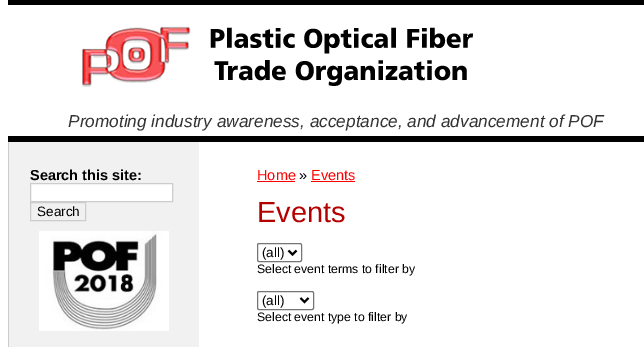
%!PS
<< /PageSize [644 347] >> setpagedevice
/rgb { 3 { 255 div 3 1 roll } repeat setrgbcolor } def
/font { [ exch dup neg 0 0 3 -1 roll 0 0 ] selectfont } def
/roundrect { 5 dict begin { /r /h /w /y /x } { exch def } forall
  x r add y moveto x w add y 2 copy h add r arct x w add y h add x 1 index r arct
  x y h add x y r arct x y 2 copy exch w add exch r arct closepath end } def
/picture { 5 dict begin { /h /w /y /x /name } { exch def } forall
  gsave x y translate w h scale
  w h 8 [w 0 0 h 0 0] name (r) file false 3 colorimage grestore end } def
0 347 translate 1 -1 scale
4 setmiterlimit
255 255 255 rgb
0 0 644 347 rectfill
0 0 0 rgb
8 0 636 5 rectfill
(img/1.rgb) 82 26 391 61 picture
[
  [8 136 636 6 0 0 0]
  [9 142 190 205 241 241 241]
  [8 142 1 205 204 204 204]
] { aload pop rgb rectfill } forall
255 255 255 rgb
30.5 183.5 moveto 172.5 183.5 lineto 172.5 201.5 lineto 30.5 201.5 lineto closepath gsave fill grestore
204 204 204 rgb
stroke
30.5 202.5 55 18 rectstroke
(img/2.rgb) 39 231 130 100 picture
255 0 0 rgb
257 181 38 1 rectfill
311 181 44 1 rectfill
118 118 118 rgb
257.5 243.5 44 18 1.5 roundrect stroke
0 0 0 rgb
2 setlinewidth
288.5 250.5 moveto 292.5 254.5 lineto 296.5 250.5 lineto stroke
118 118 118 rgb
1 setlinewidth
257.5 291.5 56 18 1.5 roundrect stroke
0 0 0 rgb
2 setlinewidth
300.5 298 moveto 304.5 302 lineto 308.5 298 lineto stroke
/LiberationSans-Italic 17.25 font
51 51 51 rgb
68 127 moveto (Promoting industry awareness, acceptance, and advancement of POF) show
/LiberationSans-Bold 14.5 font
0 0 0 rgb
30 180 moveto (Search this site:) show
/LiberationSans-Regular 13.5 font
37 216 moveto (Search) show
/LiberationSans-Regular 14.5 font
255 0 0 rgb
257 180 moveto (Home) show
0 0 0 rgb
299 180 moveto (») show
255 0 0 rgb
311 180 moveto (Events) show
/LiberationSans-Regular 29 font
181 0 0 rgb
257 222 moveto (Events) show
/LiberationSans-Regular 13.5 font
0 0 0 rgb
262 257 moveto (\(all\)) show
/LiberationSans-Regular 12.25 font
257 273 moveto (Select event terms to filter by) show
/LiberationSans-Regular 13.5 font
262 305 moveto (\(all\)) show
/LiberationSans-Regular 12.25 font
257 321 moveto (Select event type to filter by) show
showpage
